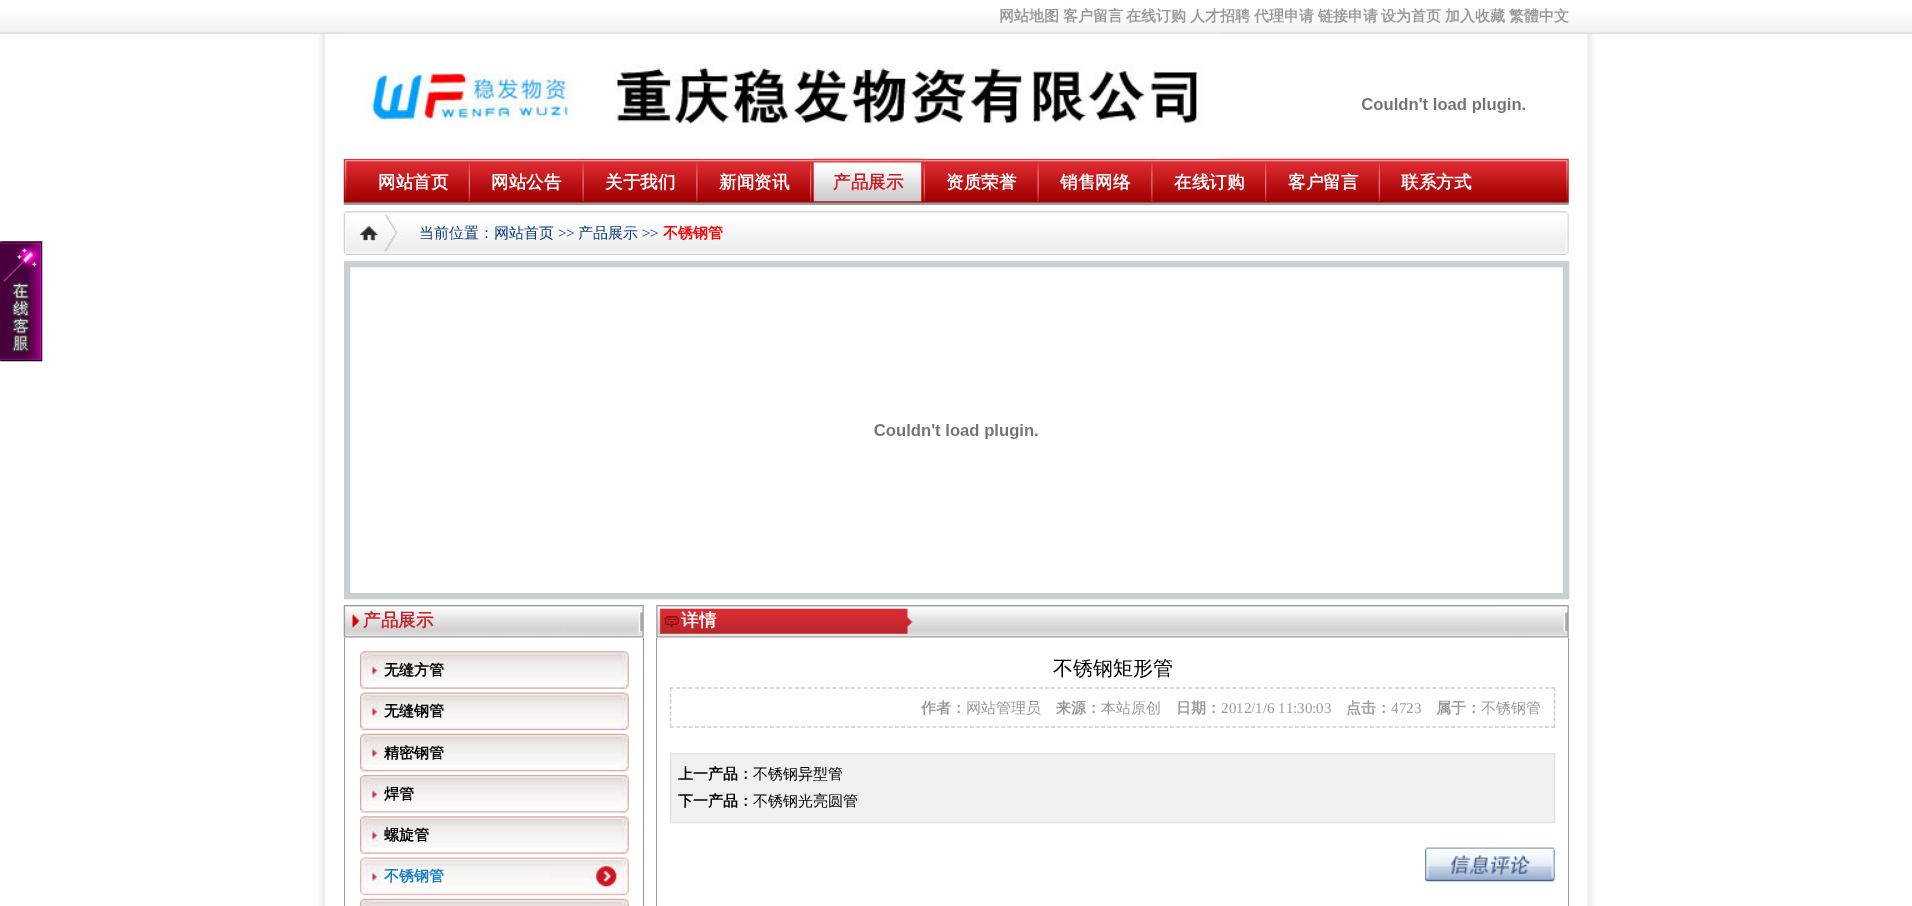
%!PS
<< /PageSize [1912 906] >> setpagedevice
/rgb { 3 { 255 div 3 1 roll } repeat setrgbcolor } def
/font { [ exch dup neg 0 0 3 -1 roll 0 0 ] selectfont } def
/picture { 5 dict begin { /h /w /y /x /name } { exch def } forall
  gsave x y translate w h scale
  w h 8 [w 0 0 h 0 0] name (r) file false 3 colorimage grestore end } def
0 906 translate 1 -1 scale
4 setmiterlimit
255 255 255 rgb
0 0 1912 906 rectfill
(img/1.rgb) 318 33 1277 873 picture
(img/2.rgb) 0 0 1912 34 picture
(img/6.rgb) 343 158 1226 47 picture
(img/3.rgb) 344 33 250 126 picture
(img/4.rgb) 593 33 626 126 picture
(img/5.rgb) 1362 98 163 15 picture
(img/7.rgb) 468 158 2 44 picture
(img/8.rgb) 582 158 2 44 picture
(img/9.rgb) 696 158 2 44 picture
(img/10.rgb) 810 158 2 44 picture
(img/11.rgb) 813 158 109 44 picture
(img/7.rgb) 923 158 2 44 picture
(img/8.rgb) 1037 158 2 44 picture
(img/9.rgb) 1151 158 2 44 picture
(img/12.rgb) 1265 158 2 44 picture
(img/13.rgb) 1378 158 2 44 picture
(img/14.rgb) 343 211 1226 44 picture
(img/15.rgb) 0 241 43 121 picture
200 208 210 rgb
6 setlinewidth
347 264 1219 332 rectstroke
(img/16.rgb) 874 424 164 15 picture
(img/17.rgb) 343 605 301 33 picture
153 153 153 rgb
643 638 1 268 rectfill
344 638 1 268 rectfill
(img/18.rgb) 360 651 269 39 picture
(img/19.rgb) 360 692 269 39 picture
(img/20.rgb) 360 733 269 40 picture
(img/21.rgb) 360 775 269 39 picture
(img/18.rgb) 360 816 269 39 picture
(img/22.rgb) 360 857 269 40 picture
(img/23.rgb) 360 898 269 8 picture
(img/24.rgb) 656 605 913 33 picture
1568 638 1 268 rectfill
656 638 1 268 rectfill
204 204 204 rgb
1.2 setlinewidth
[3.75 2.5] 0 setdash
670 688 moveto 1555 688 lineto stroke
[3.75 2.29] 0 setdash
1554.5 687.5 moveto 1554.5 727.5 lineto stroke
[3.75 2.5] 0 setdash
670 727 moveto 1555 727 lineto stroke
[3.75 2.29] 0 setdash
670.5 687.5 moveto 670.5 727.5 lineto stroke
240 240 240 rgb
670.5 753.5 moveto 1554.5 753.5 lineto 1554.5 822.5 lineto 670.5 822.5 lineto closepath gsave fill grestore
227 227 227 rgb
1 setlinewidth
[] 0 setdash
stroke
(img/25.rgb) 1425 847 130 35 picture
/WenQuanYiZenHei-Bold 15 font
153 153 153 rgb
[
  [(网站地图) 999 21]
  [(客户留言) 1063 21]
  [(在线订购) 1126 21]
  [(人才招聘) 1190 21]
  [(代理申请) 1254 21]
  [(链接申请) 1318 21]
  [(设为首页) 1381 21]
  [(加入收藏) 1445 21]
  [(繁體中文) 1509 21]
] { aload pop moveto show } forall
/WenQuanYiZenHei-Bold 17.5 font
255 255 255 rgb
[
  [(网站首页) 378 188]
  [(网站公告) 491 188]
  [(关于我们) 605 188]
  [(新闻资讯) 719 188]
] { aload pop moveto show } forall
205 30 35 rgb
833 188 moveto (产品展示) show
255 255 255 rgb
[
  [(资质荣誉) 946 188]
  [(销售网络) 1060 188]
  [(在线订购) 1174 188]
  [(客户留言) 1288 188]
  [(联系方式) 1401 188]
] { aload pop moveto show } forall
/WenQuanYiZenHei-Medium 15 font
11 59 125 rgb
419 238 moveto (当前位置：网站首页) show
/LiberationSerif-Regular 15 font
558 238 moveto (>>) show
/WenQuanYiZenHei-Medium 15 font
578 238 moveto (产品展示) show
/LiberationSerif-Regular 15 font
642 238 moveto (>>) show
/WenQuanYiZenHei-Bold 15 font
255 0 0 rgb
663 238 moveto (不锈钢管) show
/WenQuanYiZenHei-Bold 17.5 font
202 35 43 rgb
363 626 moveto (产品展示) show
/WenQuanYiZenHei-Bold 15 font
0 0 0 rgb
[
  [(无缝方管) 384 675]
  [(无缝钢管) 384 716]
  [(精密钢管) 384 758]
  [(焊管) 384 799]
  [(螺旋管) 384 840]
] { aload pop moveto show } forall
19 126 204 rgb
384 881 moveto (不锈钢管) show
/WenQuanYiZenHei-Bold 17.5 font
255 255 255 rgb
681 626 moveto (详情) show
/WenQuanYiZenHei-Medium 20 font
0 0 0 rgb
1053 675 moveto (不锈钢矩形管) show
/WenQuanYiZenHei-Bold 15 font
153 153 153 rgb
921 713 moveto (作者：) show
/WenQuanYiZenHei-Medium 15 font
966 713 moveto (网站管理员) show
/WenQuanYiZenHei-Bold 15 font
1056 713 moveto (来源：) show
/WenQuanYiZenHei-Medium 15 font
1101 713 moveto (本站原创) show
/WenQuanYiZenHei-Bold 15 font
1176 713 moveto (日期：) show
/LiberationSerif-Regular 15 font
1221 713 moveto (2012/1/6 11:30:03) show
/WenQuanYiZenHei-Bold 15 font
1346 713 moveto (点击：) show
/LiberationSerif-Regular 15 font
1391 713 moveto (4723) show
/WenQuanYiZenHei-Bold 15 font
1436 713 moveto (属于：) show
/WenQuanYiZenHei-Medium 15 font
1481 713 moveto (不锈钢管) show
/WenQuanYiZenHei-Bold 15 font
0 0 0 rgb
678 779 moveto (上一产品：) show
/WenQuanYiZenHei-Medium 15 font
753 779 moveto (不锈钢异型管) show
/WenQuanYiZenHei-Bold 15 font
678 806 moveto (下一产品：) show
/WenQuanYiZenHei-Medium 15 font
753 806 moveto (不锈钢光亮圆管) show
showpage
